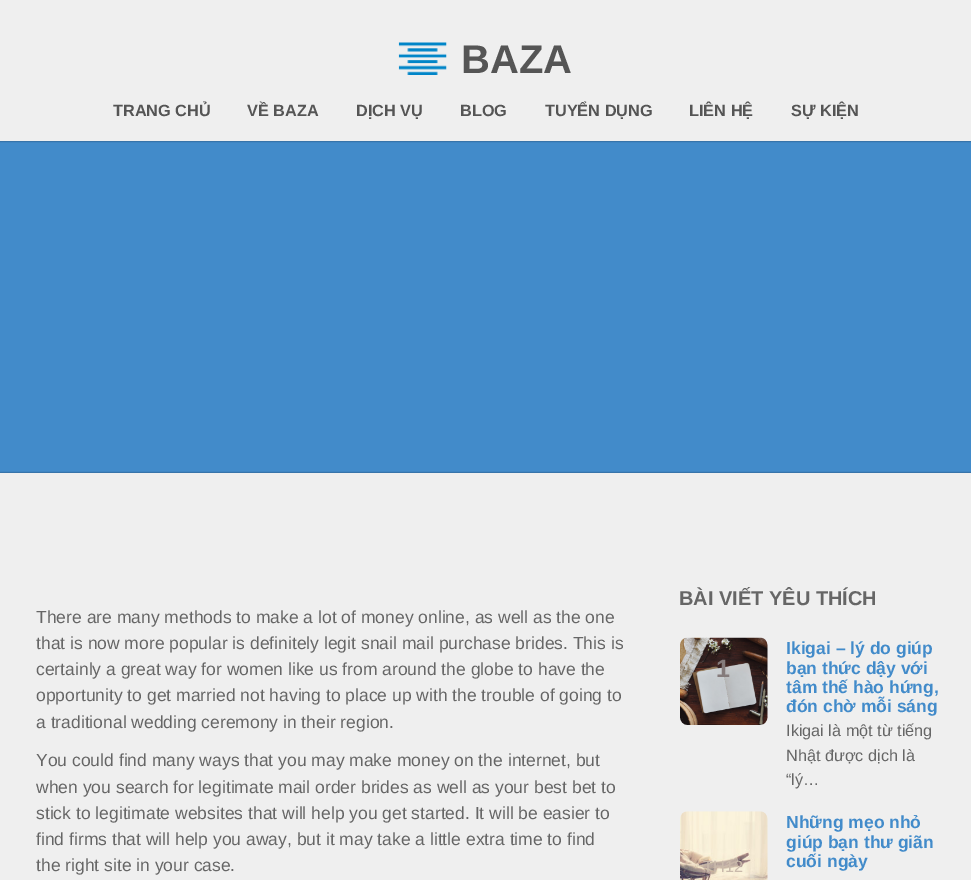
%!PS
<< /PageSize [971 880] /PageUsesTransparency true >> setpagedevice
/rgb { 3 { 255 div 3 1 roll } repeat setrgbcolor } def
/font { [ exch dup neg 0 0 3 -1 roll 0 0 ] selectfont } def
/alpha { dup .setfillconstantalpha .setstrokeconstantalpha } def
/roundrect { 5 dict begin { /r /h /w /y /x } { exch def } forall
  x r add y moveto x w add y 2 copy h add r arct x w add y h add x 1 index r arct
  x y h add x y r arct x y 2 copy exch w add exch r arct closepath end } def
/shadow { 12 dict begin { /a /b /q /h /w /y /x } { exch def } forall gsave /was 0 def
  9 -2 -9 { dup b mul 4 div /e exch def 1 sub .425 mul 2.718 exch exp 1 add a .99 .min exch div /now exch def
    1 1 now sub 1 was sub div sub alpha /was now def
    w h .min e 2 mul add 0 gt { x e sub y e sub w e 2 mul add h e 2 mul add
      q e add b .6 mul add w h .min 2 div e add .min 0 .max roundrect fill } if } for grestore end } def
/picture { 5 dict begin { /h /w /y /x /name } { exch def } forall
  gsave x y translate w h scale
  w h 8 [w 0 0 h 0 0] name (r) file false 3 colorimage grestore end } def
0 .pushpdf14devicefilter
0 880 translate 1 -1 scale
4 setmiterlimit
239 239 239 rgb
0 0 971 880 rectfill
66 139 202 rgb
0 141 971 332 rectfill
gsave
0 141 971 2 rectclip
0 0 0 rgb
0 0 971 141 0 1 0.5 shadow
grestore
(img/1.rgb) 398 42 49 33 picture
gsave
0 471 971 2 rectclip
0 0 0 rgb
0 473 971 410 0 1 0.5 shadow
grestore
(img/2.rgb) 680 637 88 88 picture
(img/3.rgb) 680 811 88 69 picture
/LiberationSans-Bold 40 font
85 85 85 rgb
461 73 moveto (BAZA) show
/LiberationSans-Bold 16.25 font
[
  [(TRANG CHỦ) 113 116]
  [(VỀ BAZA) 247 116]
  [(DỊCH VỤ) 356 116]
  [(BLOG) 460 116]
  [(TUYỂN DỤNG) 545 116]
  [(LIÊN HỆ) 689 116]
  [(SỰ KIỆN) 791 116]
] { aload pop moveto show } forall
/LiberationSans-Regular 17.5 font
102 102 102 rgb
[
  [(There are many methods to make a lot of money online, as well as the one) 36 623]
  [(that is now more popular is definitely legit snail mail purchase brides. This is) 36 649]
  [(certainly a great way for women like us from around the globe to have the) 36 675]
  [(opportunity to get married not having to place up with the trouble of going to) 36 701]
  [(a traditional wedding ceremony in their region.) 36 728]
  [(You could find many ways that you may make money on the internet, but) 36 766]
  [(when you search for legitimate mail order brides as well as your best bet to) 36 793]
  [(stick to legitimate websites that will help you get started. It will be easier to) 36 819]
  [(find firms that will help you away, but it may take a little extra time to find) 36 845]
  [(the right site in your case.) 36 871]
] { aload pop moveto show } forall
/LiberationSans-Bold 20 font
679 605 moveto (BÀI VIẾT YÊU THÍCH) show
/LiberationSans-Bold 17.5 font
66 139 202 rgb
[
  [(Ikigai – lý do giúp) 786 654]
  [(bạn thức dậy với) 786 674]
  [(tâm thế hào hứng,) 786 693]
  [(đón chờ mỗi sáng) 786 712]
] { aload pop moveto show } forall
/LiberationSans-Bold 25 font
133 123 123 rgb
716 677 moveto (1) show
/LiberationSans-Regular 16.25 font
102 102 102 rgb
[
  [(Ikigai là một từ tiếng) 786 736]
  [(Nhật được dịch là) 786 761]
  [(“lý…) 786 785]
] { aload pop moveto show } forall
/LiberationSans-Bold 17.5 font
66 139 202 rgb
[
  [(Những mẹo nhỏ) 786 828]
  [(giúp bạn thư giãn) 786 848]
  [(cuối ngày) 786 867]
] { aload pop moveto show } forall
/LiberationSans-Regular 16.25 font
202 186 171 rgb
703 872 moveto (TH12) show
.poppdf14devicefilter showpage
